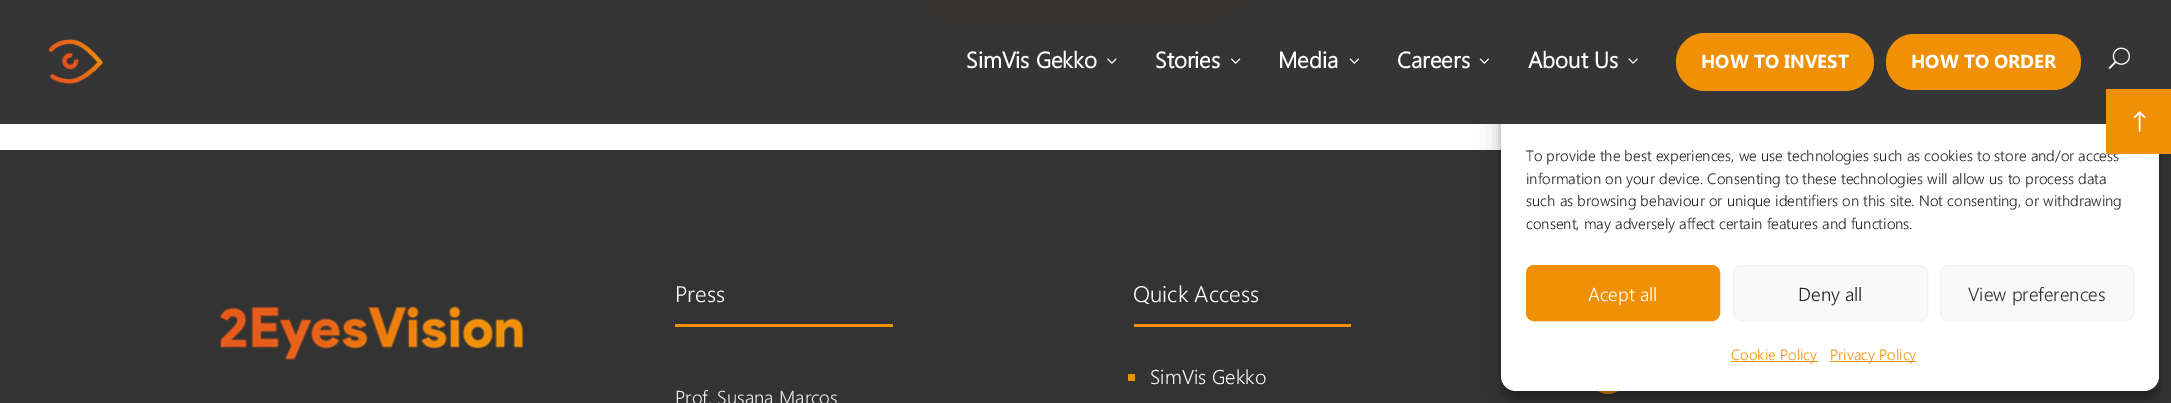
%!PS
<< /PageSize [2171 403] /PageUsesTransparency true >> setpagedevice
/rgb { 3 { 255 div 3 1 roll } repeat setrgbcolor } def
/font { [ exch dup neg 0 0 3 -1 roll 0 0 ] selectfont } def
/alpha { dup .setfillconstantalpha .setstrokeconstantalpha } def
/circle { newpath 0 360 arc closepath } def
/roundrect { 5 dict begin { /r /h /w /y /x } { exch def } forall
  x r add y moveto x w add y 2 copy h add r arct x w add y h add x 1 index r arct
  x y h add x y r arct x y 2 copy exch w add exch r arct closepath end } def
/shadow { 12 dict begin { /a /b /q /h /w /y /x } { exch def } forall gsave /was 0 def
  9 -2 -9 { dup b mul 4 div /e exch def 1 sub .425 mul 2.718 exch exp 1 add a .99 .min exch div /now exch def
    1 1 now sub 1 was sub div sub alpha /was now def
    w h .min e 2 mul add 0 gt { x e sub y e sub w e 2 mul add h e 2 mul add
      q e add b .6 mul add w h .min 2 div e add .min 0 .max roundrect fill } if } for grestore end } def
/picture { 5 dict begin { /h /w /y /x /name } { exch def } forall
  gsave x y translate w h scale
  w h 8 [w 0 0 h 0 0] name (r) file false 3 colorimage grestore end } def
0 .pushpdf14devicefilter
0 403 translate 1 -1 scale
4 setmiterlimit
255 255 255 rgb
0 0 2171 403 rectfill
240 144 6 rgb
919 -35 334 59 35 roundrect fill
51 51 51 rgb
0 150 2171 253 rectfill
240 144 6 rgb
1608 377 17 circle fill
0 0 0 rgb
1501 71 658 328 15 4 0.23 shadow
1501 76 658 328 15 12.5 0.19 shadow
255 255 255 rgb
1501 64 658 327 15 roundrect fill
0.99 alpha
51 51 51 rgb
0 0 2171 124 rectfill
1 alpha
(img/1.rgb) 48 39 55 45 picture
(img/2.rgb) 1107 58 10 6 picture
(img/3.rgb) 1231 58 10 6 picture
(img/4.rgb) 1349 58 10 6 picture
(img/4.rgb) 1479 58 10 6 picture
(img/5.rgb) 1628 58 10 6 picture
240 144 4 rgb
1676 33 198 58 29 roundrect fill
240 144 6 rgb
1886 34 195 56 28 roundrect fill
(img/6.rgb) 2108 47 22 22 picture
(img/7.rgb) 219 305 305 55 picture
[
  [675 324 218 3 240 144 6]
  [1134 324 217 3 240 144 6]
  [1128 374 7 7 240 144 6]
] { aload pop rgb rectfill } forall
1526.5 265.5 193 55 7.5 roundrect gsave fill grestore
stroke
249 249 249 rgb
1733.5 265.5 194 55 7.5 roundrect gsave fill grestore
242 242 242 rgb
stroke
249 249 249 rgb
1940.5 265.5 193 55 7.5 roundrect gsave fill grestore
242 242 242 rgb
stroke
240 144 6 rgb
1731 361 87 1 rectfill
1830 361 86 1 rectfill
/SegoeUI-Bold 22.5 font
255 255 255 rgb
[
  [(SimVis Gekko) 966 68]
  [(Stories) 1155 68]
  [(Media) 1278 68]
  [(Careers) 1397 68]
  [(About Us) 1528 68]
] { aload pop moveto show } forall
/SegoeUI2-Bold 18.75 font
1701 68 moveto (HOW TO INVEST) show
1911 68 moveto (HOW TO ORDER) show
/SegoeUI-Light 22.5 font
675 302 moveto (Press) show
/SegoeUI-Light 18.75 font
230 233 236 rgb
675 404 moveto (Prof. Susana Marcos) show
/SegoeUI-Light 22.5 font
255 255 255 rgb
1133 302 moveto (Quick Access) show
/SegoeUI-Light 20 font
245 245 245 rgb
1150 384 moveto (SimVis Gekko) show
/SegoeUI-Light 15 font
34 34 34 rgb
1526 161 moveto (To provide the best experiences, we use technologies such as cookies to store and/or access) show
240 144 6 rgb
2106 89 65 65 rectfill
(img/8.rgb) 2133 111 13 21 picture
34 34 34 rgb
[
  [(information on your device. Consenting to these technologies will allow us to process data) 1526 184]
  [(such as browsing behaviour or unique identifiers on this site. Not consenting, or withdrawing) 1526 206]
  [(consent, may adversely affect certain features and functions.) 1526 229]
] { aload pop moveto show } forall
/SegoeUI-Light 18.75 font
255 255 255 rgb
1588 301 moveto (Acept all) show
34 34 34 rgb
1798 301 moveto (Deny all) show
51 51 51 rgb
1968 301 moveto (View preferences) show
/SegoeUI-Light 15 font
240 144 6 rgb
1731 360 moveto (Cookie Policy) show
1830 360 moveto (Privacy Policy) show
.poppdf14devicefilter showpage
